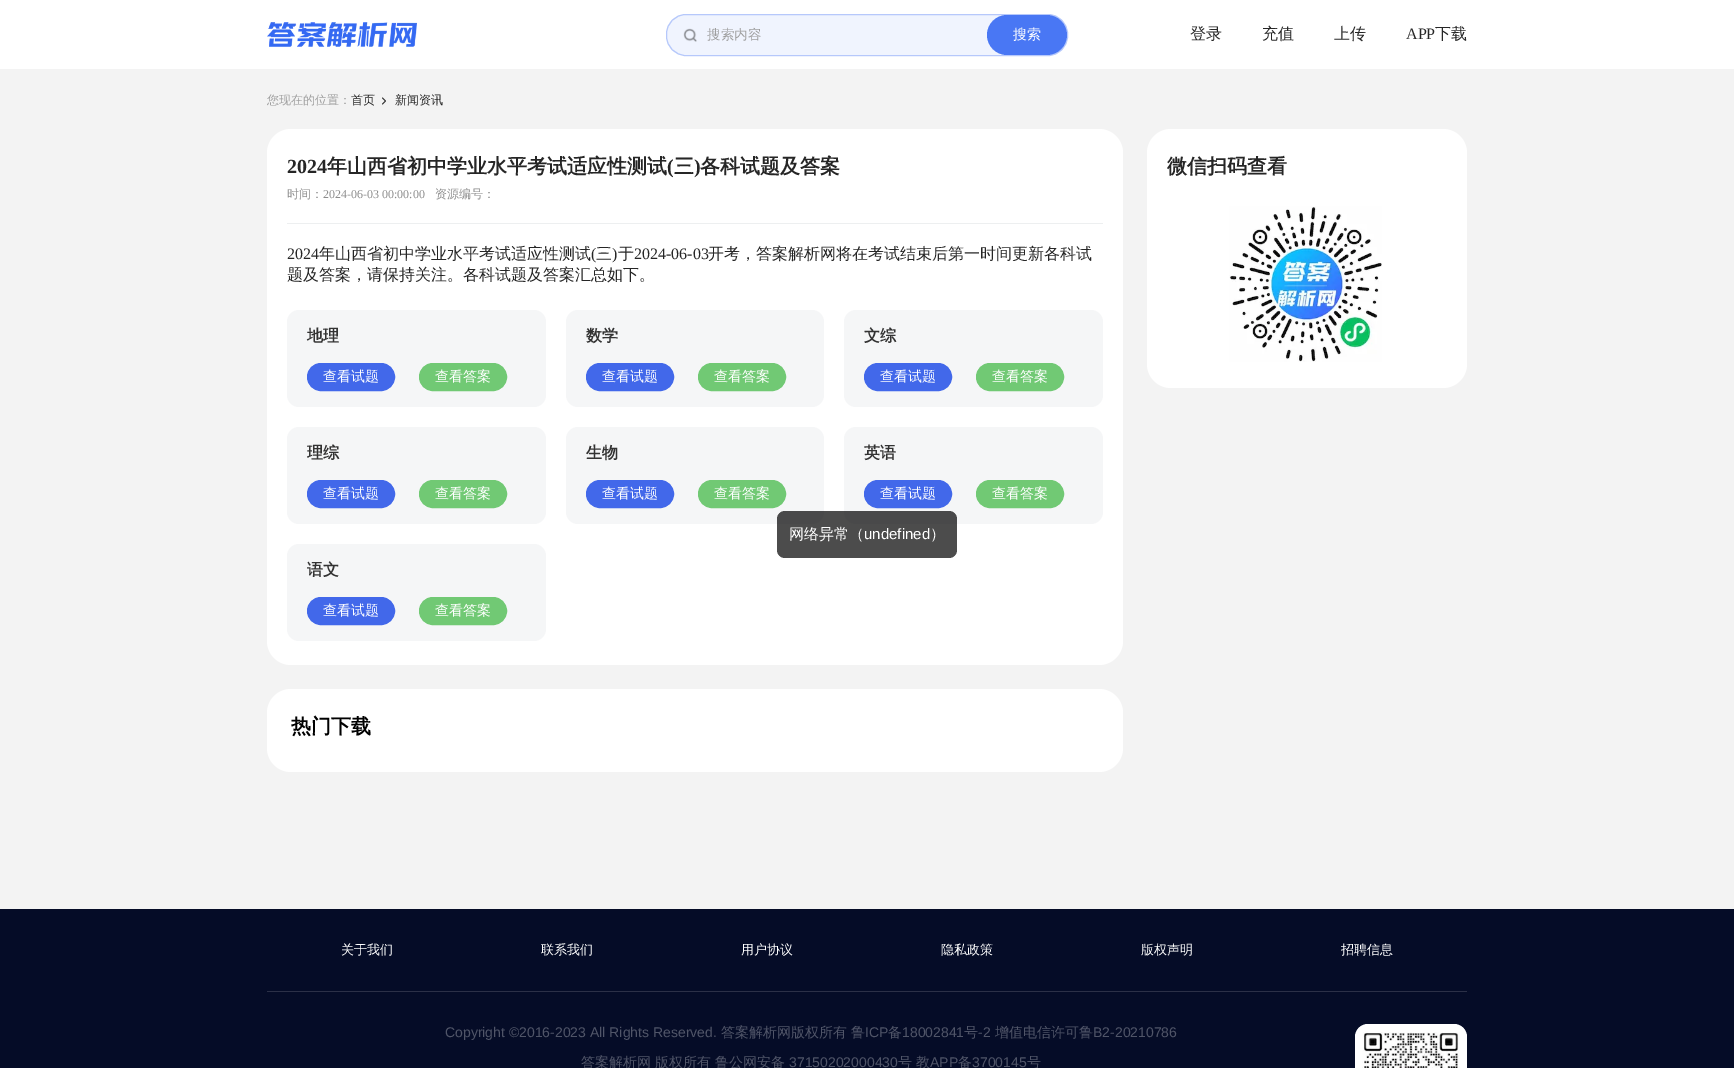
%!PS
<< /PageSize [1734 1068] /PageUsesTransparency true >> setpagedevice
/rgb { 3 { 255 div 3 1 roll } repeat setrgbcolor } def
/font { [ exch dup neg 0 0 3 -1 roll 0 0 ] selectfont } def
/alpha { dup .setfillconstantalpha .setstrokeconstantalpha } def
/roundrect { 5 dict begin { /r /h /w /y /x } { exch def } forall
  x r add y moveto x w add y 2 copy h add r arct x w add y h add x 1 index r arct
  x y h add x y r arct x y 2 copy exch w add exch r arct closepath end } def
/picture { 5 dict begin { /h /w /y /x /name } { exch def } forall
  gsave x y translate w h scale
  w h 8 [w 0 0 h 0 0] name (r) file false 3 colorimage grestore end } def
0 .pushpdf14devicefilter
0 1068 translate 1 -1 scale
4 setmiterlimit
243 243 243 rgb
0 0 1734 1068 rectfill
255 255 255 rgb
0 0 1734 69 rectfill
(img/1.rgb) 267 22 150 25 picture
240 244 254 rgb
666 14 402 42 20 roundrect fill
0.35 alpha
73 119 244 rgb
666.5 14.5 401 41 19.5 roundrect stroke
1 alpha
(img/2.rgb) 683 28 14 14 picture
987 15 80 40 20 roundrect fill
(img/3.rgb) 382 97 4 8 picture
255 255 255 rgb
267 129 856 536 24 roundrect fill
237 239 240 rgb
287 223 816 1 rectfill
245 246 247 rgb
287 310 259 97 12 roundrect fill
66 104 234 rgb
307.5 363.5 87 27 13.5 roundrect gsave fill grestore
stroke
113 201 116 rgb
419.5 363.5 87 27 13.5 roundrect gsave fill grestore
stroke
245 246 247 rgb
566 310 258 97 12 roundrect fill
66 104 234 rgb
586.5 363.5 87 27 13.5 roundrect gsave fill grestore
stroke
113 201 116 rgb
698.5 363.5 87 27 13.5 roundrect gsave fill grestore
stroke
245 246 247 rgb
844 310 259 97 12 roundrect fill
66 104 234 rgb
864.5 363.5 87 27 13.5 roundrect gsave fill grestore
stroke
113 201 116 rgb
976.5 363.5 87 27 13.5 roundrect gsave fill grestore
stroke
245 246 247 rgb
287 427 259 97 12 roundrect fill
66 104 234 rgb
307.5 480.5 87 27 13.5 roundrect gsave fill grestore
stroke
113 201 116 rgb
419.5 480.5 87 27 13.5 roundrect gsave fill grestore
stroke
245 246 247 rgb
566 427 258 97 12 roundrect fill
66 104 234 rgb
586.5 480.5 87 27 13.5 roundrect gsave fill grestore
stroke
113 201 116 rgb
698.5 480.5 87 27 13.5 roundrect gsave fill grestore
stroke
245 246 247 rgb
844 427 259 97 12 roundrect fill
66 104 234 rgb
864.5 480.5 87 27 13.5 roundrect gsave fill grestore
stroke
113 201 116 rgb
976.5 480.5 87 27 13.5 roundrect gsave fill grestore
stroke
245 246 247 rgb
287 544 259 97 12 roundrect fill
66 104 234 rgb
307.5 597.5 87 27 13.5 roundrect gsave fill grestore
stroke
113 201 116 rgb
419.5 597.5 87 27 13.5 roundrect gsave fill grestore
stroke
255 255 255 rgb
267 689 856 83 24 roundrect fill
1147 129 320 259 24 roundrect fill
(img/4.rgb) 1229 206 153 156 picture
5 12 39 rgb
0 909 1734 159 rectfill
43 48 71 rgb
267 991 1200 1 rectfill
255 255 255 rgb
1355 1024 112 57 13 roundrect fill
(img/5.rgb) 1362 1032 98 36 picture
0.7 alpha
0 0 0 rgb
777 511 180 47 8 roundrect fill
/WenQuanYiZenHei-Medium 13.5 font
1 alpha
158 158 158 rgb
707 39 moveto (搜索内容) show
/WenQuanYiZenHei-Medium 14 font
255 255 255 rgb
1013 39 moveto (搜索) show
/WenQuanYiZenHei-Medium 16 font
38 38 38 rgb
[
  [(登录) 1190 39]
  [(充值) 1262 39]
  [(上传) 1334 39]
] { aload pop moveto show } forall
/LiberationSerif-Regular 16 font
1406 39 moveto (APP) show
/WenQuanYiZenHei-Medium 16 font
1435 39 moveto (下载) show
/WenQuanYiZenHei-Medium 12 font
158 158 158 rgb
267 104 moveto (您现在的位置：) show
38 38 38 rgb
351 104 moveto (首页) show
395 104 moveto (新闻资讯) show
/LiberationSerif-Bold 20 font
287 173 moveto (2024) show
/WenQuanYiZenHei-Bold 20 font
327 173 moveto (年山西省初中学业水平考试适应性测试) show
/LiberationSerif-Bold 20 font
667 173 moveto (\() show
/WenQuanYiZenHei-Bold 20 font
674 173 moveto (三) show
/LiberationSerif-Bold 20 font
694 173 moveto (\)) show
/WenQuanYiZenHei-Bold 20 font
700 173 moveto (各科试题及答案) show
/WenQuanYiZenHei-Medium 12 font
140 140 140 rgb
287 198 moveto (时间：) show
/LiberationSerif-Regular 12 font
323 198 moveto (2024-06-03 00:00:00) show
/WenQuanYiZenHei-Medium 12 font
435 198 moveto (资源编号：) show
/LiberationSerif-Regular 16 font
38 38 38 rgb
287 259 moveto (2024) show
/WenQuanYiZenHei-Medium 16 font
319 259 moveto (年山西省初中学业水平考试适应性测试) show
/LiberationSerif-Regular 16 font
591 259 moveto (\() show
/WenQuanYiZenHei-Medium 16 font
596 259 moveto (三) show
/LiberationSerif-Regular 16 font
612 259 moveto (\)) show
/WenQuanYiZenHei-Medium 16 font
618 259 moveto (于) show
/LiberationSerif-Regular 16 font
634 259 moveto (2024-06-03) show
/WenQuanYiZenHei-Medium 16 font
708 259 moveto (开考，答案解析网将在考试结束后第一时间更新各科试) show
287 280 moveto (题及答案，请保持关注。各科试题及答案汇总如下。) show
/WenQuanYiZenHei-Bold 16 font
51 51 51 rgb
307 341 moveto (地理) show
/WenQuanYiZenHei-Medium 14 font
255 255 255 rgb
323 381 moveto (查看试题) show
435 381 moveto (查看答案) show
/WenQuanYiZenHei-Bold 16 font
51 51 51 rgb
586 341 moveto (数学) show
/WenQuanYiZenHei-Medium 14 font
255 255 255 rgb
602 381 moveto (查看试题) show
714 381 moveto (查看答案) show
/WenQuanYiZenHei-Bold 16 font
51 51 51 rgb
864 341 moveto (文综) show
/WenQuanYiZenHei-Medium 14 font
255 255 255 rgb
880 381 moveto (查看试题) show
992 381 moveto (查看答案) show
/WenQuanYiZenHei-Bold 16 font
51 51 51 rgb
307 458 moveto (理综) show
/WenQuanYiZenHei-Medium 14 font
255 255 255 rgb
323 498 moveto (查看试题) show
435 498 moveto (查看答案) show
/WenQuanYiZenHei-Bold 16 font
51 51 51 rgb
586 458 moveto (生物) show
/WenQuanYiZenHei-Medium 14 font
255 255 255 rgb
602 498 moveto (查看试题) show
714 498 moveto (查看答案) show
/WenQuanYiZenHei-Bold 16 font
51 51 51 rgb
864 458 moveto (英语) show
/WenQuanYiZenHei-Medium 14 font
255 255 255 rgb
880 498 moveto (查看试题) show
992 498 moveto (查看答案) show
/WenQuanYiZenHei-Bold 16 font
51 51 51 rgb
307 575 moveto (语文) show
/WenQuanYiZenHei-Medium 14 font
255 255 255 rgb
323 615 moveto (查看试题) show
435 615 moveto (查看答案) show
/WenQuanYiZenHei-Bold 20 font
0 0 0 rgb
291 733 moveto (热门下载) show
38 38 38 rgb
1167 173 moveto (微信扫码查看) show
/WenQuanYiZenHei-Medium 13 font
255 255 255 rgb
[
  [(关于我们) 341 954]
  [(联系我们) 541 954]
  [(用户协议) 741 954]
  [(隐私政策) 941 954]
  [(版权声明) 1141 954]
  [(招聘信息) 1341 954]
] { aload pop moveto show } forall
/LiberationSans-Regular 14 font
80 85 104 rgb
445 1037 moveto (Copyright ©2016-2023 All Rights Reserved.) show
/WenQuanYiZenHei-Medium 14 font
721 1037 moveto (答案解析网版权所有 鲁) show
/LiberationSans-Regular 14 font
865 1037 moveto (ICP) show
/WenQuanYiZenHei-Medium 14 font
888 1037 moveto (备) show
/LiberationSans-Regular 14 font
902 1037 moveto (18002841) show
/WenQuanYiZenHei-Medium 14 font
964 1037 moveto (号) show
/LiberationSans-Regular 14 font
978 1037 moveto (-2) show
/WenQuanYiZenHei-Medium 14 font
995 1037 moveto (增值电信许可鲁) show
/LiberationSans-Regular 14 font
1093 1037 moveto (B2-20210786) show
/WenQuanYiZenHei-Medium 14 font
581 1067 moveto (答案解析网 版权所有 鲁公网安备) show
/LiberationSans-Regular 14 font
789 1067 moveto (37150202000430) show
/WenQuanYiZenHei-Medium 14 font
898 1067 moveto (号 教) show
/LiberationSans-Regular 14 font
930 1067 moveto (APP) show
/WenQuanYiZenHei-Medium 14 font
958 1067 moveto (备) show
/LiberationSans-Regular 14 font
972 1067 moveto (3700145) show
/WenQuanYiZenHei-Medium 14 font
1027 1067 moveto (号) show
/WenQuanYiZenHei-Medium 15 font
255 255 255 rgb
789 539 moveto (网络异常（) show
/LiberationSans-Regular 15 font
864 539 moveto (undefined) show
/WenQuanYiZenHei-Medium 15 font
930 539 moveto (）) show
.poppdf14devicefilter showpage
